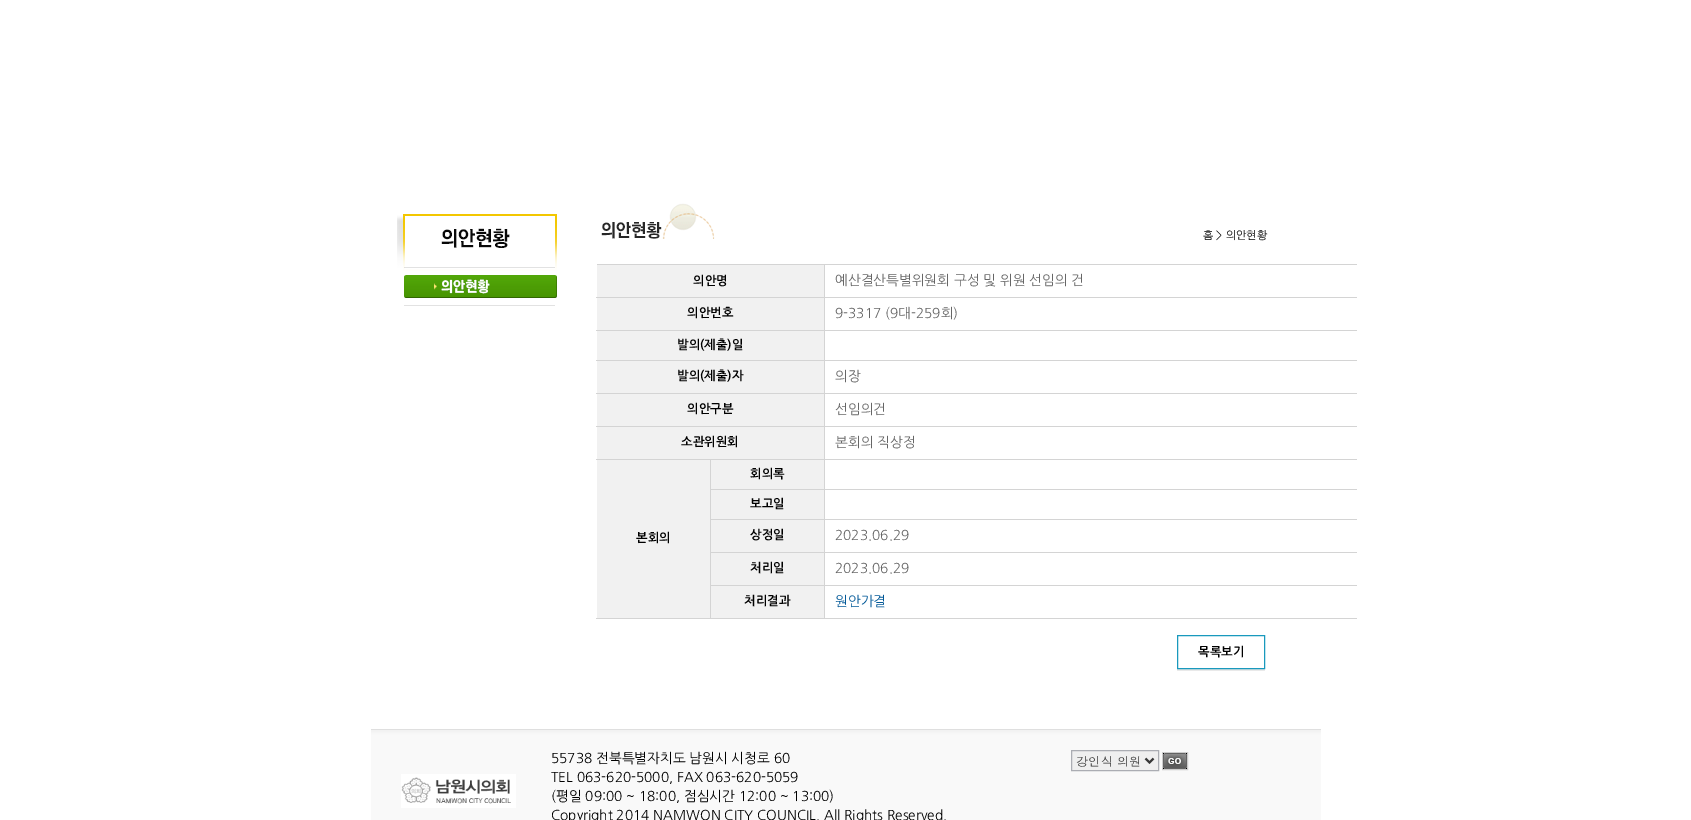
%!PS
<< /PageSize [1691 820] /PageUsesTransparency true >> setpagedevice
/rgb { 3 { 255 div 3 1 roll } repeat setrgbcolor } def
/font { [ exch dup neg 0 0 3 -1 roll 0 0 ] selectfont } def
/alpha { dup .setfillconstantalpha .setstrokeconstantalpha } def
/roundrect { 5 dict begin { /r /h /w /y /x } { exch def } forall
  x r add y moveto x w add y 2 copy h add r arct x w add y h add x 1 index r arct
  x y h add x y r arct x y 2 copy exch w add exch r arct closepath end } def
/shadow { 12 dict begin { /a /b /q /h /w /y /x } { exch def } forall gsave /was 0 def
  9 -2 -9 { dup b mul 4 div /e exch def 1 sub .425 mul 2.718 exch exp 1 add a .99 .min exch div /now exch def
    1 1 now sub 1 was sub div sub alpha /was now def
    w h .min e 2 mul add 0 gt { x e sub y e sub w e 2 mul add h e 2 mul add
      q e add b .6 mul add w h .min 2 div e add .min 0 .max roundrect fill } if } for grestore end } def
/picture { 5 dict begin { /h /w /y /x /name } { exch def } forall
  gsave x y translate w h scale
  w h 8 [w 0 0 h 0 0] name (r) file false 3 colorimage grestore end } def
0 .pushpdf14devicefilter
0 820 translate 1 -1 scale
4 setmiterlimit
255 255 255 rgb
0 0 1691 820 rectfill
(img/1.rgb) 397 214 160 54 picture
(img/2.rgb) 403 268 154 38 picture
(img/3.rgb) 601 203 114 36 picture
[
  [597 264 760 1 212 212 212]
  [597 265 227 32 241 241 241]
  [824 297 533 1 212 212 212]
  [824 264 1 34 212 212 212]
  [596 297 229 1 212 212 212]
  [597 298 227 32 241 241 241]
  [824 618 533 1 212 212 212]
  [824 585 1 34 212 212 212]
  [824 585 533 1 212 212 212]
  [824 552 1 34 212 212 212]
  [824 552 533 1 212 212 212]
  [824 519 1 34 212 212 212]
  [824 519 533 1 212 212 212]
  [824 489 1 31 212 212 212]
  [824 489 533 1 212 212 212]
  [824 459 1 31 212 212 212]
  [824 459 533 1 212 212 212]
  [824 426 1 34 212 212 212]
  [824 426 533 1 212 212 212]
  [824 393 1 34 212 212 212]
  [824 393 533 1 212 212 212]
  [824 360 1 34 212 212 212]
  [824 360 533 1 212 212 212]
  [824 330 1 31 212 212 212]
  [824 330 533 1 212 212 212]
  [824 298 1 33 212 212 212]
  [596 330 229 1 212 212 212]
  [597 331 227 29 241 241 241]
  [596 360 229 1 212 212 212]
  [597 361 227 32 241 241 241]
  [596 393 229 1 212 212 212]
  [597 394 227 32 241 241 241]
  [596 426 229 1 212 212 212]
  [597 427 227 32 241 241 241]
  [710 489 115 1 212 212 212]
  [710 519 115 1 212 212 212]
  [710 552 115 1 212 212 212]
  [710 585 115 1 212 212 212]
  [710 618 115 1 212 212 212]
  [710 459 1 160 212 212 212]
  [596 459 229 1 212 212 212]
  [711 460 113 29 241 241 241]
  [597 460 113 158 241 241 241]
  [596 618 115 1 212 212 212]
  [711 490 113 29 241 241 241]
  [711 520 113 32 241 241 241]
  [711 553 113 32 241 241 241]
  [711 586 113 32 241 241 241]
] { aload pop rgb rectfill } forall
gsave
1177 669 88 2 rectclip
0 0 0 rgb
1177 637 88 34 0 0.5 0.1 shadow
grestore
25 153 189 rgb
1177.5 635.5 87 33 rectstroke
(img/4.rgb) 371 729 950 91 picture
239 239 239 rgb
1071.5 750.5 moveto 1158.5 750.5 lineto 1158.5 770.5 lineto 1071.5 770.5 lineto closepath gsave fill grestore
171 173 179 rgb
stroke
55 55 55 rgb
2 setlinewidth
1145.5 758.5 moveto 1149.5 762.5 lineto 1153.5 758.5 lineto stroke
204 204 204 rgb
1 setlinewidth
1162.5 752.5 25 17 rectstroke
(img/5.rgb) 1163 753 24 16 picture
(img/6.rgb) 401 774 115 34 picture
/NanumGothic-Regular 11 font
0 0 0 rgb
1203 239 moveto (홈 > 의안현황) show
/NanumGothic-Bold 12.25 font
693 285 moveto (의안명) show
/NanumGothic-Regular 13.6 font
102 102 102 rgb
835 285 moveto (예산결산특별위원회 구성 및 위원 선임의 건) show
/NanumGothic-Bold 12.25 font
0 0 0 rgb
687 317 moveto (의안번호) show
/NanumGothic-Regular 13.6 font
102 102 102 rgb
835 318 moveto (9-3317 \(9대-259회\)) show
/NanumGothic-Bold 12.25 font
0 0 0 rgb
677 349 moveto (발의\(제출\)일) show
677 380 moveto (발의\(제출\)자) show
/NanumGothic-Regular 13.6 font
102 102 102 rgb
835 381 moveto (의장) show
/NanumGothic-Bold 12.25 font
0 0 0 rgb
687 413 moveto (의안구분) show
/NanumGothic-Regular 13.6 font
102 102 102 rgb
835 414 moveto (선임의건) show
/NanumGothic-Bold 12.25 font
0 0 0 rgb
681 446 moveto (소관위원회) show
/NanumGothic-Regular 13.6 font
102 102 102 rgb
835 447 moveto (본회의 직상정) show
/NanumGothic-Bold 12.25 font
0 0 0 rgb
[
  [(회의록) 750 478]
  [(본회의) 636 542]
  [(보고일) 750 508]
  [(상정일) 750 539]
] { aload pop moveto show } forall
/NanumGothic-Regular 13.6 font
102 102 102 rgb
835 540 moveto (2023.06.29) show
/NanumGothic-Bold 12.25 font
0 0 0 rgb
750 572 moveto (처리일) show
/NanumGothic-Regular 13.6 font
102 102 102 rgb
835 573 moveto (2023.06.29) show
/NanumGothic-Bold 12.25 font
0 0 0 rgb
744 605 moveto (처리결과) show
/NanumGothic-Regular 13.6 font
1 88 151 rgb
835 606 moveto (원안가결) show
/NanumGothic-Bold 12.25 font
0 0 0 rgb
1198 656 moveto (목록보기) show
/NanumGothic-Regular 13.6 font
[
  [(55738 전북특별자치도 남원시 시청로 60) 551 763]
  [(TEL 063-620-5000, FAX 063-620-5059) 551 782]
  [(\(평일 09:00 ~ 18:00, 점심시간 12:00 ~ 13:00\)) 551 801]
  [(Copyright 2014 NAMWON CITY COUNCIL. All Rights Reserved.) 551 820]
] { aload pop moveto show } forall
/Dotum-Regular 12.25 font
55 55 55 rgb
1076 766 moveto (강인식 의원) show
.poppdf14devicefilter showpage
